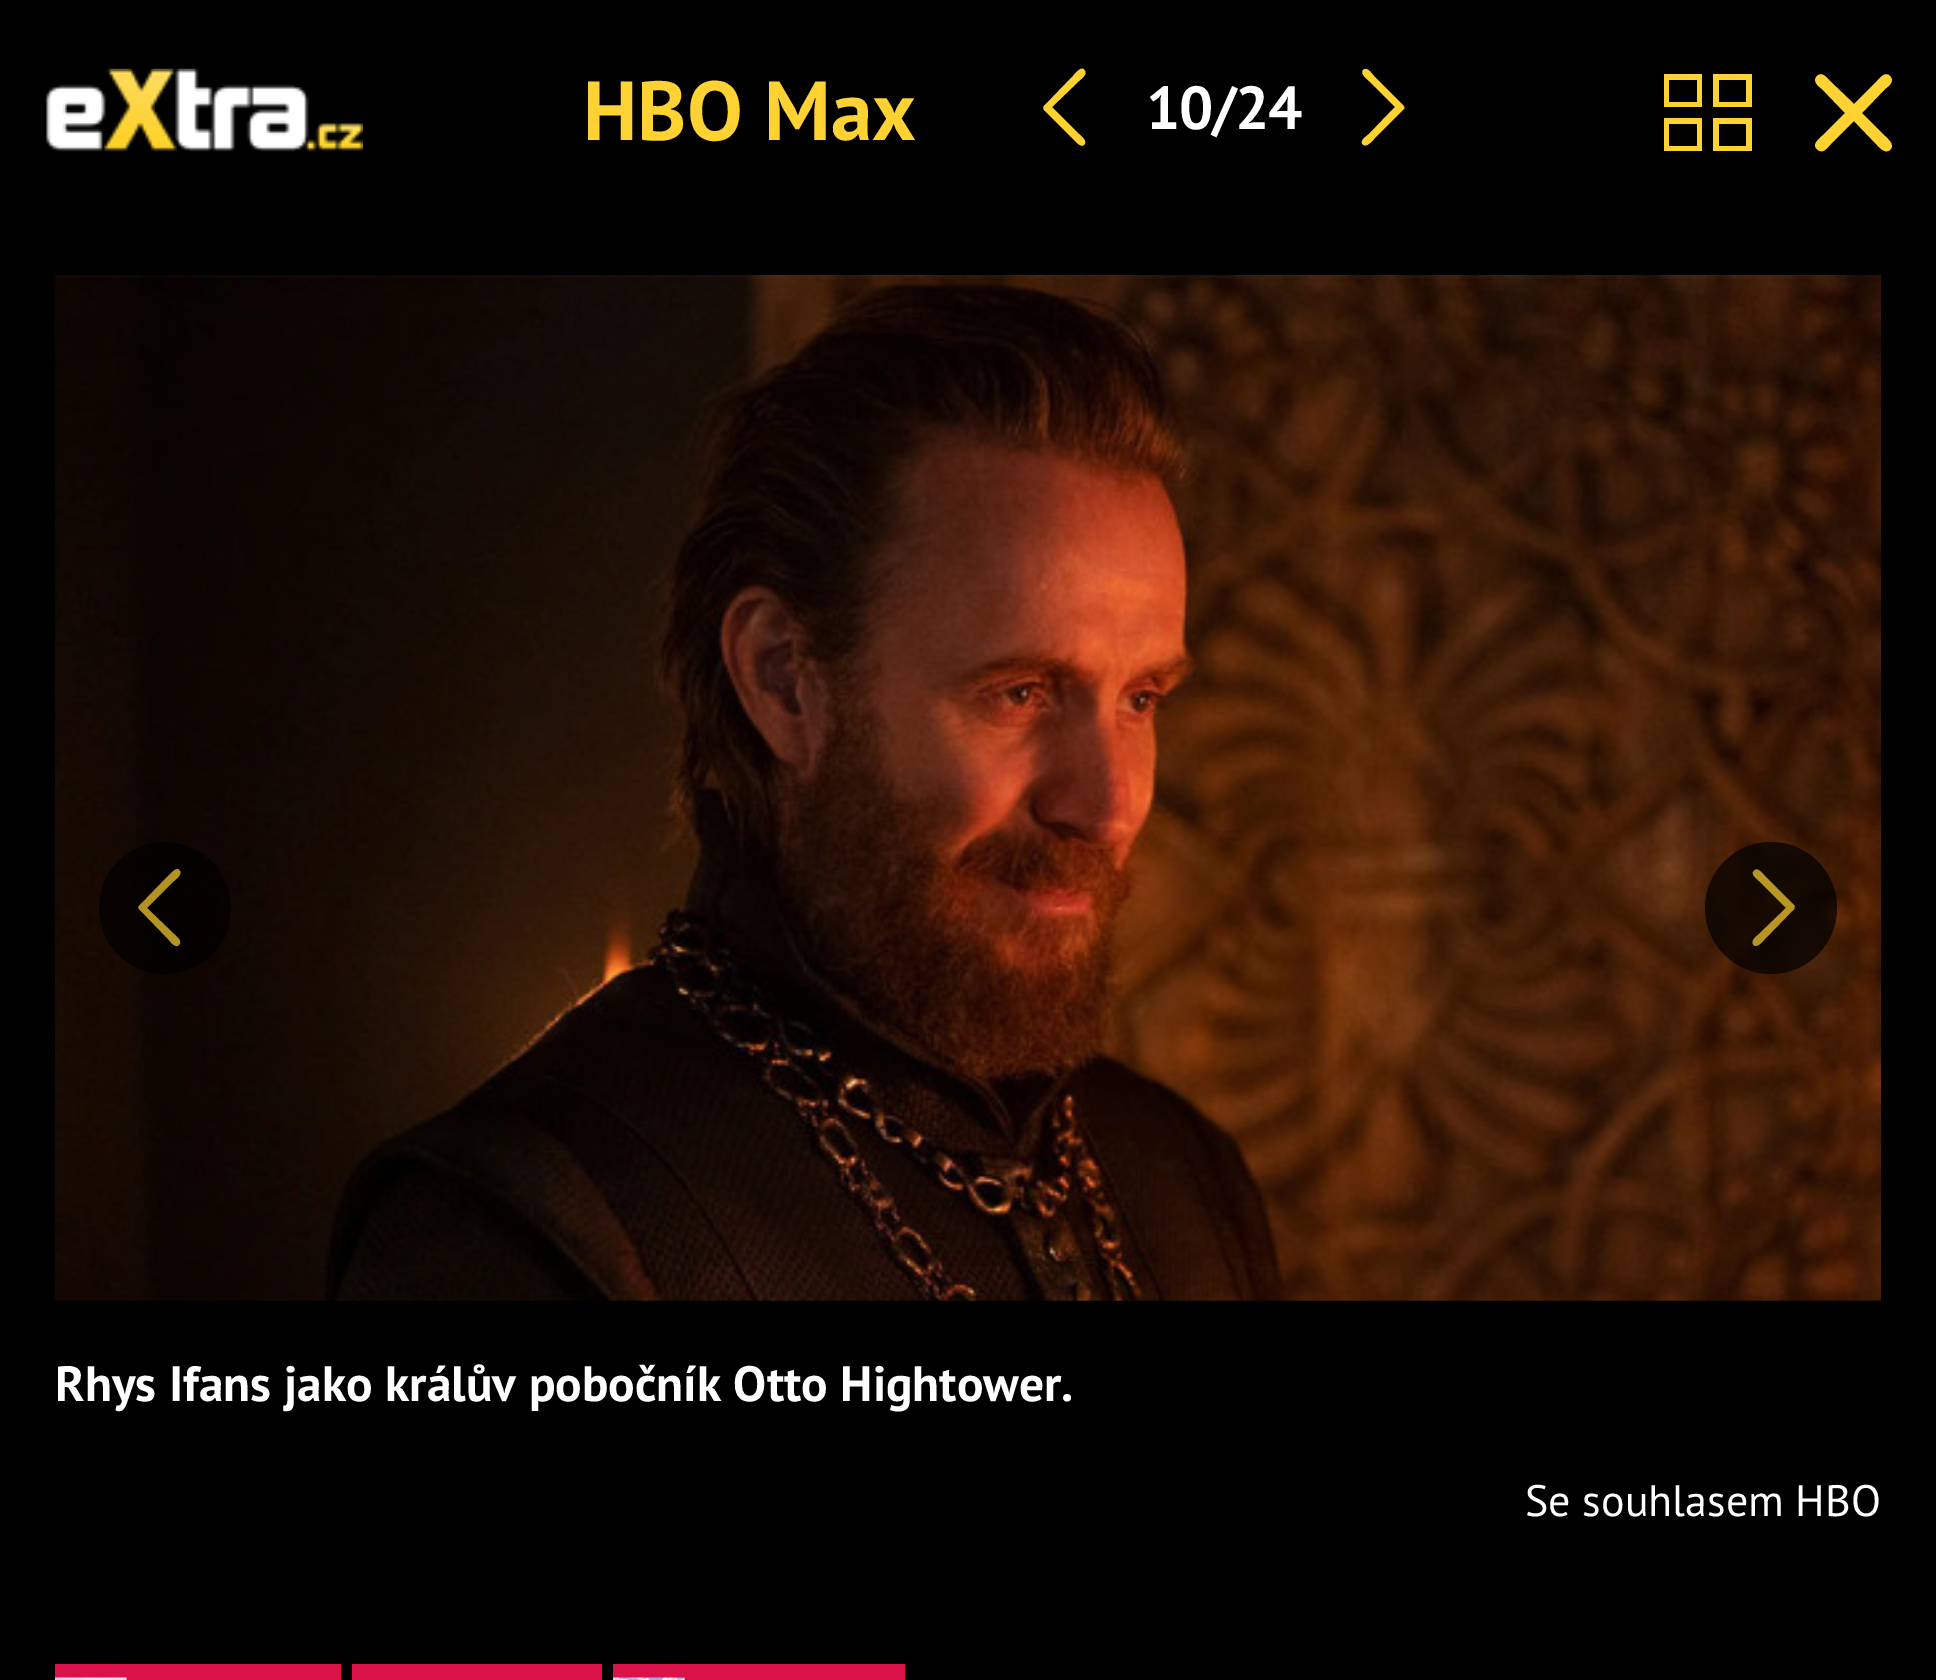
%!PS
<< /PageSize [1936 1680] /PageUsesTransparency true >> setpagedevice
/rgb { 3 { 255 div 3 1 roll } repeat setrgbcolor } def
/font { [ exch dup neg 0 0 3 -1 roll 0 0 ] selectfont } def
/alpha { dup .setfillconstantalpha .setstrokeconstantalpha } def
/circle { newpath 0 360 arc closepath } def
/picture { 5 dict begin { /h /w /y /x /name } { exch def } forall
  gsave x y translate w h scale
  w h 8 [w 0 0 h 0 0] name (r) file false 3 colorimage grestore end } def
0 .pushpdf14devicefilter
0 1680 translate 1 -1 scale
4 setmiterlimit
0 0 0 rgb
0 0 1936 1680 rectfill
(img/1.rgb) 44 68 319 84 picture
254 210 50 rgb
1044 110 moveto 1073 139 lineto 1075 140 1080 148 1084 145 curveto 1088 141 1081 136 1079 134 curveto 1052 107 lineto 1079 81 lineto 1081 79 1087 75 1085 71 curveto 1082 64 1074 75 1073 76 curveto 1044 106 lineto 1043 107 1043 109 1044 110 curveto closepath fill
1403 105 moveto 1374 76 lineto 1372 74 1367 66 1363 70 curveto 1360 74 1367 79 1369 81 curveto 1395 107 lineto 1369 134 lineto 1367 136 1361 139 1362 143 curveto 1365 150 1373 140 1374 139 curveto 1404 109 lineto 1405 108 1404 106 1403 105 curveto closepath fill
1664 74 moveto 1664 107 lineto 1702 107 lineto 1702 74 lineto closepath 1697 102 moveto 1669 102 lineto 1669 80 lineto 1697 80 lineto closepath 1713 74 moveto 1713 107 lineto 1752 107 lineto 1752 74 lineto closepath 1746 102 moveto 1719 102 lineto 1719 80 lineto 1746 80 lineto closepath 1664 118 moveto 1664 151 lineto 1702 151 lineto 1702 118 lineto closepath 1697 146 moveto 1669 146 lineto 1669 124 lineto 1697 124 lineto closepath 1713 118 moveto 1713 151 lineto 1752 151 lineto 1752 118 lineto closepath 1746 146 moveto 1719 146 lineto 1719 124 lineto 1746 124 lineto closepath fill
1862 113 moveto 1885 89 lineto 1889 86 1895 81 1890 76 curveto 1885 71 1880 78 1877 81 curveto 1854 104 lineto 1830 81 lineto 1827 78 1822 71 1817 76 curveto 1812 81 1818 86 1822 89 curveto 1845 113 lineto 1822 136 lineto 1818 140 1811 145 1818 150 curveto 1823 154 1827 148 1830 145 curveto 1854 121 lineto 1877 145 lineto 1880 148 1885 154 1890 150 curveto 1895 145 1889 140 1885 136 curveto closepath fill
(img/2.rgb) 55 275 1826 1026 picture
0.7 alpha
0 0 0 rgb
165 908 66 circle fill
1 alpha
179 147 35 rgb
140 910 moveto 168 939 lineto 170 941 175 949 179 945 curveto 183 941 176 936 174 934 curveto 147 908 lineto 174 881 lineto 176 879 182 875 180 871 curveto 177 865 170 875 168 876 curveto 139 906 lineto 138 907 138 909 140 910 curveto closepath fill
0.7 alpha
0 0 0 rgb
1771 908 66 circle fill
254 210 50 rgb
1794 905 moveto 1765 876 lineto 1763 874 1757 866 1754 871 curveto 1750 874 1757 879 1759 881 curveto 1786 908 lineto 1759 934 lineto 1757 936 1751 940 1753 944 curveto 1756 950 1764 940 1765 939 curveto 1794 909 lineto 1795 908 1795 906 1794 905 curveto closepath fill
1 alpha
219 18 73 rgb
55 1664 286 16 rectfill
(img/3.rgb) 55 1677 72 3 picture
352 1664 250 16 rectfill
613 1664 292 16 rectfill
(img/4.rgb) 613 1677 72 3 picture
/PTSans-Bold 83.5 font
254 210 50 rgb
583 140 moveto (HBO Max) show
/PTSans-Bold 60.5 font
255 255 255 rgb
1146 129 moveto -1.5 0 (10/24) ashow
/PTSans-Bold 49.5 font
55 1401 moveto (Rhys Ifans jako králův pobočník Otto Hightower.) show
/PTSans-Regular 44 font
1525 1516 moveto (Se souhlasem HBO) show
.poppdf14devicefilter showpage
